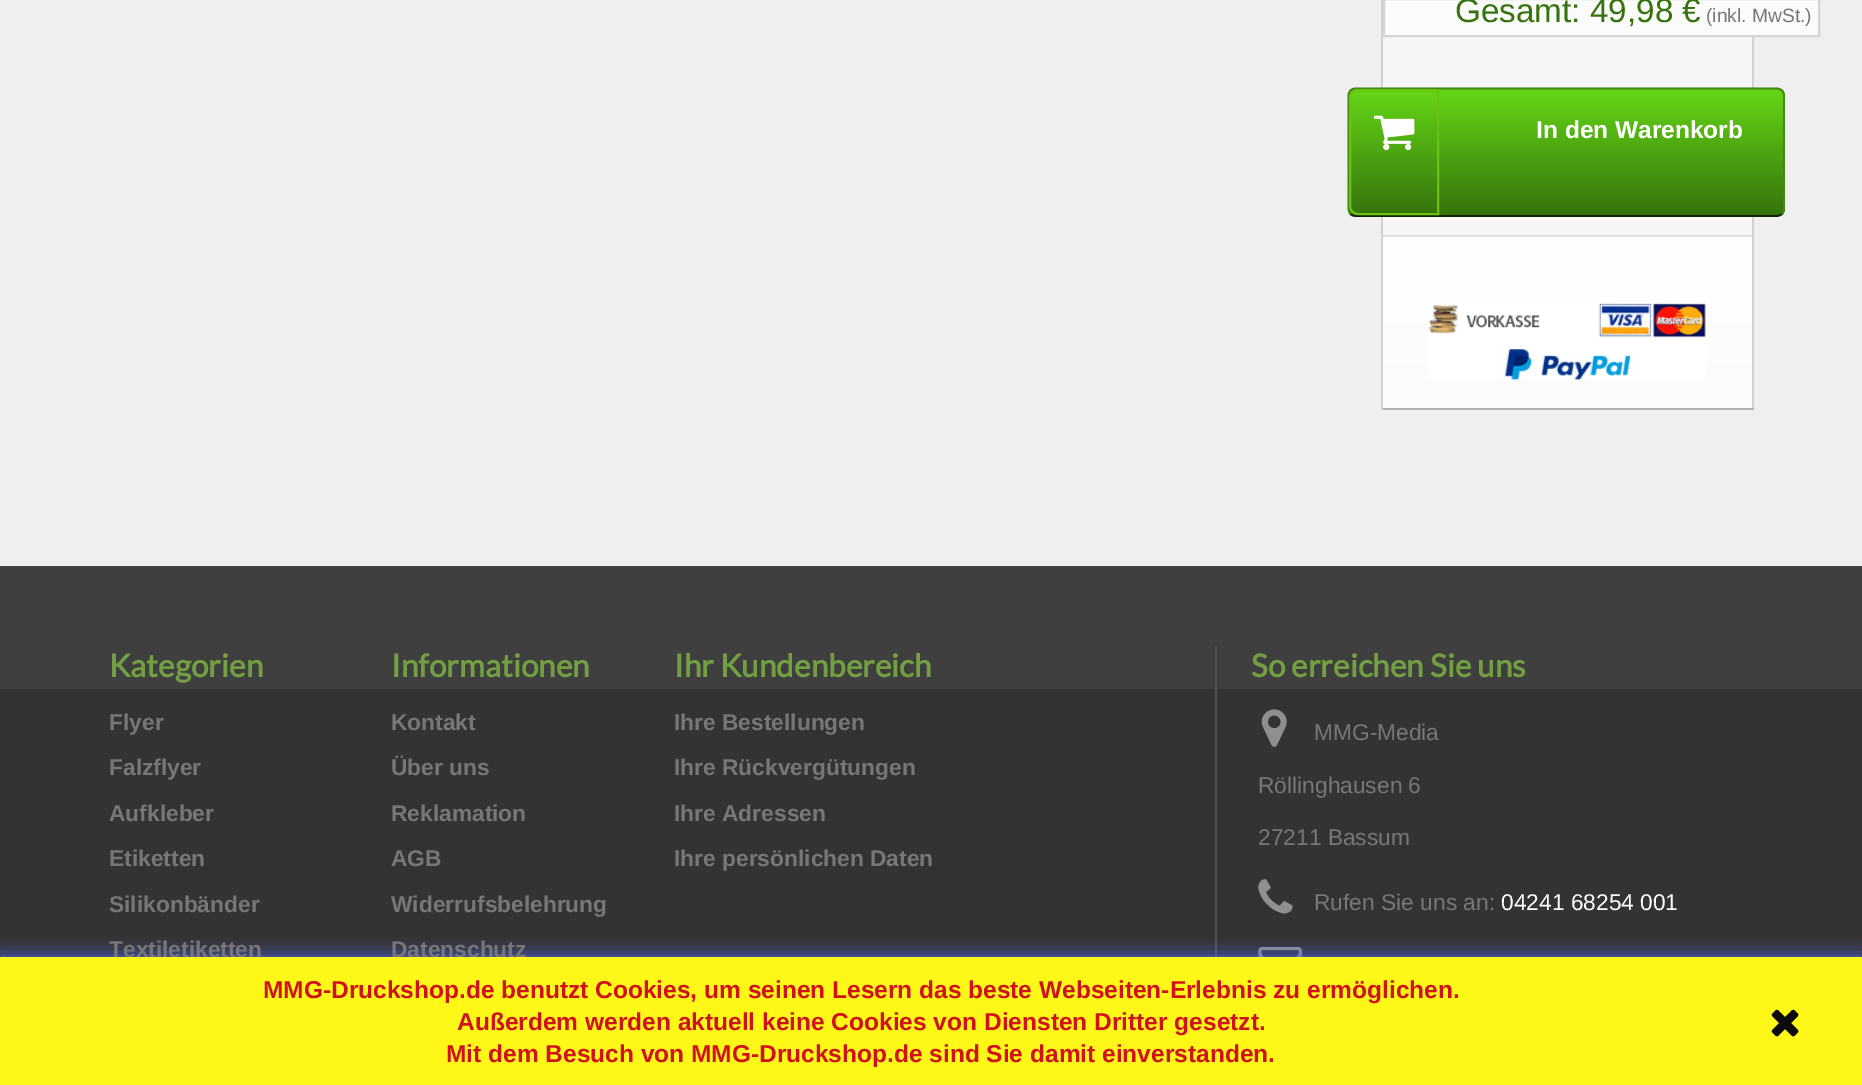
%!PS
<< /PageSize [1862 1085] /PageUsesTransparency true >> setpagedevice
/rgb { 3 { 255 div 3 1 roll } repeat setrgbcolor } def
/font { [ exch dup neg 0 0 3 -1 roll 0 0 ] selectfont } def
/alpha { dup .setfillconstantalpha .setstrokeconstantalpha } def
/roundrect { 5 dict begin { /r /h /w /y /x } { exch def } forall
  x r add y moveto x w add y 2 copy h add r arct x w add y h add x 1 index r arct
  x y h add x y r arct x y 2 copy exch w add exch r arct closepath end } def
/shadow { 12 dict begin { /a /b /q /h /w /y /x } { exch def } forall gsave /was 0 def
  9 -2 -9 { dup b mul 4 div /e exch def 1 sub .425 mul 2.718 exch exp 1 add a .99 .min exch div /now exch def
    1 1 now sub 1 was sub div sub alpha /was now def
    w h .min e 2 mul add 0 gt { x e sub y e sub w e 2 mul add h e 2 mul add
      q e add b .6 mul add w h .min 2 div e add .min 0 .max roundrect fill } if } for grestore end } def
/picture { 5 dict begin { /h /w /y /x /name } { exch def } forall
  gsave x y translate w h scale
  w h 8 [w 0 0 h 0 0] name (r) file false 3 colorimage grestore end } def
0 .pushpdf14devicefilter
0 1085 translate 1 -1 scale
4 setmiterlimit
51 51 51 rgb
0 0 1862 1085 rectfill
[
  [0 0 1862 566 239 239 239]
  [1383 37 369 198 246 246 246]
  [1752 37 2 373 210 208 208]
  [1381 408 373 2 176 175 175]
  [1381 0 2 410 210 208 208]
] { aload pop rgb rectfill } forall
251 251 251 rgb
1384 -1 moveto 1819 -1 lineto 1819 36 lineto 1384 36 lineto closepath gsave fill grestore
214 212 212 rgb
2 setlinewidth
stroke
gsave
1348 88 437 129 9 roundrect clip newpath
gsave 1348 89 moveto 1785 89 lineto 1785 215 lineto 1348 215 lineto closepath clip newpath
<< /ShadingType 2 /ColorSpace /DeviceRGB /Coords [1566 89 1566 215] /Extend [true true] /Function << /FunctionType 2 /Domain [0 1] /C0 [0.396 0.843 0.086] /C1 [0.212 0.451 0.047] /N 1 >> >> shfill grestore
grestore
17 37 4 rgb
1.8 setlinewidth
1782 214 moveto 1780.5 215.5 1778.5 216 1776 216 curveto 1356 216 lineto 1354 216 1352 215.5 1350.5 214 curveto stroke
64 136 14 rgb
1350.5 214 moveto 1349 212.5 1348.5 210.5 1348.5 208 curveto 1348.5 96 lineto 1348.5 94 1349 92 1350.5 90.5 curveto 1352 89 1354 88.5 1356 88.5 curveto 1776 88.5 lineto 1778.5 88.5 1780.5 89 1782 90.5 curveto 1783.5 92 1784 94 1784 96 curveto 1784 208 lineto 1784 210.5 1783.5 212.5 1782 214 curveto stroke
105 196 18 rgb
2 setlinewidth
1358 90 moveto 1438 90 lineto 1438 214 lineto 1358 214 lineto 1353.5 214 1350 210.5 1350 206 curveto 1350 98 lineto 1350 93.5 1353.5 90 1358 90 curveto closepath stroke
(img/1.rgb) 1373 115 42 36 picture
gsave 1383 237 moveto 1752 237 lineto 1752 408 lineto 1383 408 lineto closepath clip newpath
<< /ShadingType 2 /ColorSpace /DeviceRGB /Coords [1567 236 1567 408] /Extend [true true] /Function << /FunctionType 2 /Domain [0 1] /C0 [1 1 1] /C1 [0.984 0.984 0.984] /N 1 >> >> shfill grestore
223 222 222 rgb
1383 235 369 2 rectfill
(img/2.rgb) 1428 303 278 77 picture
63 63 63 rgb
0 566 1862 123 rectfill
81 81 81 rgb
1215 646 2 311 rectfill
(img/3.rgb) 1261 709 26 38 picture
(img/4.rgb) 1258 879 35 35 picture
(img/5.rgb) 1258 947 44 10 picture
82 105 255 rgb
0 957 1862 128 0 9 1 shadow
/LiberationSans-Regular 33.25 font
54 115 12 rgb
1455 22 moveto (Gesamt: 49,98 €) show
/LiberationSans-Regular 19.25 font
119 119 119 rgb
1706 22 moveto (\(inkl. MwSt.\)) show
/LiberationSans-Bold 24.5 font
255 255 255 rgb
1536 138 moveto (In den Warenkorb) show
/Lato-Bold 31.5 font
113 159 65 rgb
109 677 moveto (Kategorien) show
/LiberationSans-Bold 22.75 font
119 119 119 rgb
[
  [(Flyer) 109 730]
  [(Falzflyer) 109 775]
  [(Aufkleber) 109 821]
  [(Etiketten) 109 866]
  [(Silikonbänder) 109 912]
  [(Textiletiketten) 109 957]
] { aload pop moveto show } forall
/Lato-Bold 31.5 font
113 159 65 rgb
391 677 moveto (Informationen) show
/LiberationSans-Bold 22.75 font
119 119 119 rgb
[
  [(Kontakt) 391 730]
  [(Über uns) 391 775]
  [(Reklamation) 391 821]
  [(AGB) 391 866]
  [(Widerrufsbelehrung) 391 912]
  [(Datenschutz) 391 957]
] { aload pop moveto show } forall
/Lato-Bold 31.5 font
113 159 65 rgb
674 677 moveto (Ihr Kundenbereich) show
/LiberationSans-Bold 22.75 font
119 119 119 rgb
[
  [(Ihre Bestellungen) 674 730]
  [(Ihre Rückvergütungen) 674 775]
  [(Ihre Adressen) 674 821]
  [(Ihre persönlichen Daten) 674 866]
] { aload pop moveto show } forall
/Lato-Bold 31.5 font
113 159 65 rgb
1251 677 moveto (So erreichen Sie uns) show
/LiberationSans-Regular 22.75 font
119 119 119 rgb
[
  [(MMG-Media) 1314 740]
  [(Röllinghausen 6) 1258 793]
  [(27211 Bassum) 1258 845]
  [(Rufen Sie uns an:) 1314 910]
] { aload pop moveto show } forall
255 255 255 rgb
1501 910 moveto (04241 68254 001) show
255 247 23 rgb
0 957 1862 128 rectfill
/LiberationSans-Bold 24.5 font
208 18 26 rgb
[
  [(MMG-Druckshop.de benutzt Cookies, um seinen Lesern das beste Webseiten-Erlebnis zu ermöglichen.) 263 998]
  [(Außerdem werden aktuell keine Cookies von Diensten Dritter gesetzt.) 457 1030]
  [(Mit dem Besuch von MMG-Druckshop.de sind Sie damit einverstanden.) 446 1062]
] { aload pop moveto show } forall
(img/6.rgb) 1771 1009 28 28 picture
.poppdf14devicefilter showpage
